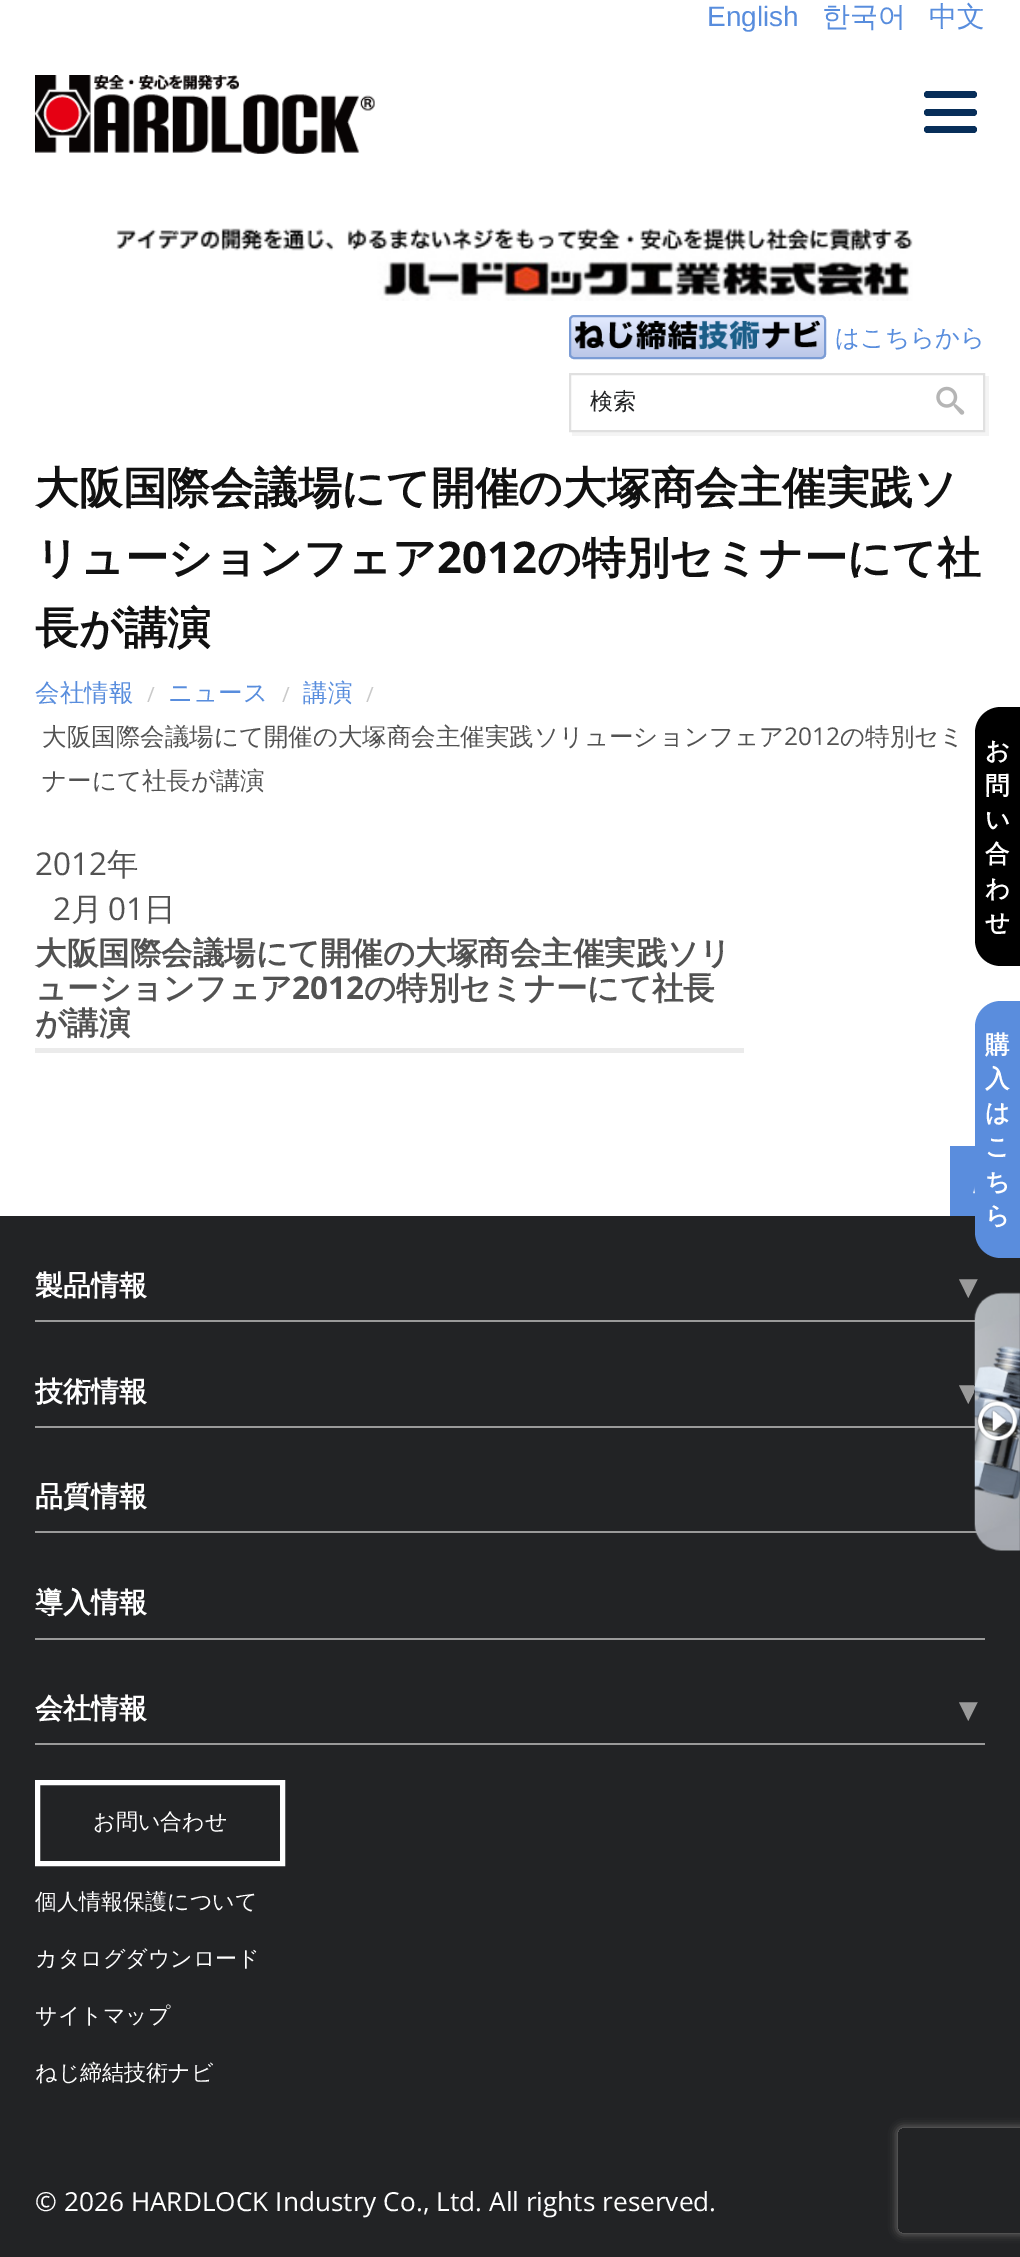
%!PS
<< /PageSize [1020 2257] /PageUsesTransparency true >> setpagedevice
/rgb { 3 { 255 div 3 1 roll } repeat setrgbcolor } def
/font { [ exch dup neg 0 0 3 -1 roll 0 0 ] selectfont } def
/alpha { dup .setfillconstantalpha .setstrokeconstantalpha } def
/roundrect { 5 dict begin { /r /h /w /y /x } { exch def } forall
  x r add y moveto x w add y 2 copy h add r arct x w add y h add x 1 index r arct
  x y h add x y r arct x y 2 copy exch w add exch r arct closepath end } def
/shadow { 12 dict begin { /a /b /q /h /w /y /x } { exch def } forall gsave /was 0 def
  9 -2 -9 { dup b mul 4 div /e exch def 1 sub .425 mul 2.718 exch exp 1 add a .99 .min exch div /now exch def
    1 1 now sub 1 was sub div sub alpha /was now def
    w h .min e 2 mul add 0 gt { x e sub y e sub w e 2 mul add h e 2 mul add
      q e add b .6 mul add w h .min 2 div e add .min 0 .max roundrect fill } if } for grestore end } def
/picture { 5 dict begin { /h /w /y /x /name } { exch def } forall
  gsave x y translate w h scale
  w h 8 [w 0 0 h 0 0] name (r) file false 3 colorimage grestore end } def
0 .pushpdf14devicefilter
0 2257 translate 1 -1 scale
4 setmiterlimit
255 255 255 rgb
0 0 1020 2257 rectfill
(img/1.rgb) 35 75 340 79 picture
7 46 89 rgb
924 91 53 7 3.5 roundrect fill
924 109 53 7 3.5 roundrect fill
924 126 53 7 3.5 roundrect fill
(img/2.rgb) 116 228 797 73 picture
gsave
569 315 257 44 5 roundrect clip newpath
gsave 569 317 moveto 826 317 lineto 826 357 lineto 569 357 lineto closepath clip newpath
<< /ShadingType 2 /ColorSpace /DeviceRGB /Coords [697 317 697 357] /Extend [true true] /Function << /FunctionType 2 /Domain [0 1] /C0 [0.886 0.918 0.996] /C1 [0.733 0.78 0.91] /N 1 >> >> shfill grestore
grestore
123 156 213 rgb
2 setlinewidth
570 316 255 42 4 roundrect stroke
(img/3.rgb) 574 320 247 30 picture
244 244 244 rgb
572 432 moveto 572 436 lineto 989 436 lineto 989 376 lineto 985 376 lineto 985 432 lineto closepath fill
224 224 224 rgb
570 374 414 57 rectstroke
(img/4.rgb) 936 386 29 29 picture
235 235 235 rgb
35 1048 709 5 rectfill
0 0 0 rgb
1001 707 moveto 1020 707 lineto 1020 966 lineto 1001 966 lineto 986.5 966 975 954.5 975 940 curveto 975 733 lineto 975 718.5 986.5 707 1001 707 curveto closepath fill
34 35 37 rgb
0 1216 1020 1041 rectfill
90 141 221 rgb
1001 1001 moveto 1020 1001 lineto 1020 1258 lineto 1001 1258 lineto 986.5 1258 975 1246.5 975 1232 curveto 975 1027 lineto 975 1012.5 986.5 1001 1001 1001 curveto closepath fill
950 1146 25 70 rectfill
(img/7.rgb) 973 1186 2 8 picture
[
  [35 1320 940 2 154 154 154]
  [35 1426 940 2 154 154 154]
  [35 1531 950 2 154 154 154]
  [35 1638 950 2 154 154 154]
  [35 1743 950 2 154 154 154]
] { aload pop rgb rectfill } forall
255 255 255 rgb
5 setlinewidth
37.5 1782.5 245 81 rectstroke
gsave
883 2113 moveto 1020 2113 lineto 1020 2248 lineto 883 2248 lineto closepath 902 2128 moveto 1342 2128 lineto 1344 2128 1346 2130 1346 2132 curveto 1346 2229 lineto 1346 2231 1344 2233 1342 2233 curveto 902 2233 lineto 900 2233 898 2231 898 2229 curveto 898 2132 lineto 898 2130 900 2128 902 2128 curveto closepath eoclip newpath
128 128 128 rgb
898 2128 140 105 4 4.5 1 shadow
grestore
/LiberationSans-Regular 28 font
88 141 221 rgb
707 26 moveto (English) show
/WenQuanYiZenHei-Medium 28 font
822 26 moveto (한국어) show
929 26 moveto (中文) show
/WenQuanYiZenHei-Medium 24.5 font
835 346 moveto (はこちらから) show
/WenQuanYiZenHei-Medium 23 font
34 35 37 rgb
590 409 moveto (検索) show
/WenQuanYiZenHei-Bold 43.75 font
17 17 17 rgb
35 503 moveto (大阪国際会議場にて開催の大塚商会主催実践ソ) show
35 573 moveto (リューションフェア) show
/OpenSans-Bold 43.75 font
437 573 moveto (2012) show
/WenQuanYiZenHei-Bold 43.75 font
537 573 moveto (の特別セミナーにて社) show
35 643 moveto (長が講演) show
/WenQuanYiZenHei-Medium 24.5 font
88 141 221 rgb
35 701 moveto (会社情報) show
/OpenSans-Regular 21 font
201 201 201 rgb
147 702 moveto (/) show
/WenQuanYiZenHei-Medium 24.5 font
88 141 221 rgb
168 701 moveto (ニュース) show
/OpenSans-Regular 21 font
201 201 201 rgb
282 702 moveto (/) show
/WenQuanYiZenHei-Medium 24.5 font
88 141 221 rgb
303 701 moveto (講演) show
/OpenSans-Regular 21 font
201 201 201 rgb
366 702 moveto (/) show
/WenQuanYiZenHei-Medium 24.5 font
82 82 82 rgb
42 745 moveto (大阪国際会議場にて開催の大塚商会主催実践ソリューションフェア) show
/OpenSans-Regular 24.5 font
784 745 moveto (2012) show
/WenQuanYiZenHei-Medium 24.5 font
840 745 moveto (の特別セミ) show
42 789 moveto (ナーにて社長が講演) show
/OpenSans-Regular 31.5 font
35 875 moveto (2012) show
/WenQuanYiZenHei-Medium 31.5 font
107 875 moveto (年) show
/OpenSans-Regular 31.5 font
53 920 moveto (2) show
/WenQuanYiZenHei-Medium 31.5 font
71 920 moveto (月) show
/OpenSans-Regular 31.5 font
108 920 moveto (01) show
/WenQuanYiZenHei-Medium 31.5 font
144 920 moveto (日) show
/WenQuanYiZenHei-Bold 31.5 font
35 964 moveto (大阪国際会議場にて開催の大塚商会主催実践ソリ) show
35 999 moveto (ューションフェア) show
/OpenSans-Bold 31.5 font
292 999 moveto (2012) show
/WenQuanYiZenHei-Bold 31.5 font
364 999 moveto (の特別セミナーにて社長) show
35 1034 moveto (が講演) show
/WenQuanYiZenHei-Bold 24.5 font
255 255 255 rgb
[
  [(お) 985 759]
  [(問) 985 794]
  [(い) 985 828]
  [(合) 985 862]
  [(わ) 985 897]
  [(せ) 985 931]
  [(購) 985 1053]
  [(入) 985 1087]
  [(は) 985 1121]
  [(こ) 985 1155]
  [(ち) 985 1190]
  [(ら) 985 1224]
] { aload pop moveto show } forall
/WenQuanYiZenHei-Bold 28 font
35 1295 moveto (製品情報) show
/DejaVuSans-Bold 35 font
154 154 154 rgb
959 1298 moveto (▾) show
/WenQuanYiZenHei-Bold 28 font
255 255 255 rgb
35 1401 moveto (技術情報) show
/DejaVuSans-Bold 35 font
154 154 154 rgb
959 1404 moveto (▾) show
(img/5.rgb) 974 1292 46 259 picture
(img/6.rgb) 976 1400 42 42 picture
/WenQuanYiZenHei-Bold 28 font
255 255 255 rgb
[
  [(品質情報) 35 1506]
  [(導入情報) 35 1612]
  [(会社情報) 35 1718]
] { aload pop moveto show } forall
/DejaVuSans-Bold 35 font
154 154 154 rgb
959 1721 moveto (▾) show
/WenQuanYiZenHei-Medium 22 font
255 255 255 rgb
[
  [(お問い合わせ) 93 1829]
  [(個人情報保護について) 35 1909]
  [(カタログダウンロード) 35 1966]
  [(サイトマップ) 35 2023]
  [(ねじ締結技術ナビ) 35 2080]
] { aload pop moveto show } forall
/OpenSans-Regular 26.25 font
35 2211 moveto (© 2026 HARDLOCK Industry Co., Ltd. All rights reserved.) show
.poppdf14devicefilter showpage
